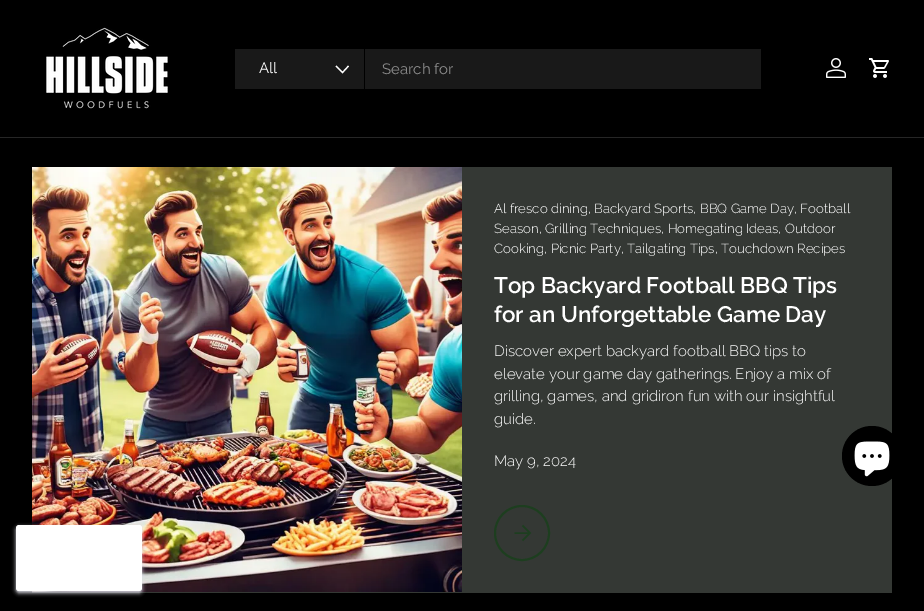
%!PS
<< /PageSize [924 611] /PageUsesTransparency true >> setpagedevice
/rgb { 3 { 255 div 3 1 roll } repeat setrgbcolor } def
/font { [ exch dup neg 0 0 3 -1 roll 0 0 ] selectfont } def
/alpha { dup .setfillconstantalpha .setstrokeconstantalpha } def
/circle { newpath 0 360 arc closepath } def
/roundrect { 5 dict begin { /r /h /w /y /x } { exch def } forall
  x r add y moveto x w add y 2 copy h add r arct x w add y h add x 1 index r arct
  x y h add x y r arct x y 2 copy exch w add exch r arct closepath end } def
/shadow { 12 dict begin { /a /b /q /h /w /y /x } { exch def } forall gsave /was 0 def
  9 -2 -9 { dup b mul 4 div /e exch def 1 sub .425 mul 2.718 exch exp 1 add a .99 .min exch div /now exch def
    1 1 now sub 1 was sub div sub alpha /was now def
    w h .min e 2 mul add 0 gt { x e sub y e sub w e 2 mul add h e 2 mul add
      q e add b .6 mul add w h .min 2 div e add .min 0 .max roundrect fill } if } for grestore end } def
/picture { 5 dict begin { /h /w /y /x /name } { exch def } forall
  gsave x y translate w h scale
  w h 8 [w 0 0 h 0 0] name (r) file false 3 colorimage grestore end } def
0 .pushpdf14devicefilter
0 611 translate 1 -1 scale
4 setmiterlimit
0 0 0 rgb
0 0 924 611 rectfill
38 38 38 rgb
0 137 924 1 rectfill
(img/1.rgb) 46 27 122 82 picture
25 25 25 rgb
235 49 526 40 rectfill
0 0 0 rgb
364 49 1 40 rectfill
255 255 255 rgb
1.2 setlinewidth
348.5 66 moveto 342.5 72.5 lineto 336 66 lineto stroke
(img/2.rgb) 826 58 20 20 picture
(img/3.rgb) 869 58 20 20 picture
52 56 52 rgb
32 167 860 426 rectfill
(img/4.rgb) 32 167 430 425 picture
29 62 31 rgb
2 setlinewidth
522 533 27 circle stroke
1.5 setlinewidth
514.5 533 moveto 529.5 533 lineto 522.5 525.5 moveto 530 533 lineto 522.5 540.5 lineto stroke
0 0 0 rgb
872 456 30 circle fill
(img/5.rgb) 854 441 36 36 picture
220 220 230 rgb
16 527 126 66 3 2 1 shadow
255 255 255 rgb
16 525 126 66 3 roundrect fill
/Raleway-Regular 15 font
259 73 moveto (All) show
140 140 140 rgb
382 74 moveto (Search for) show
/Raleway-Light 13.2 font
255 255 255 rgb
[
  [(Al fresco dining, Backyard Sports, BBQ Game Day, Football) 494 213]
  [(Season, Grilling Techniques, Homegating Ideas, Outdoor) 494 233]
  [(Cooking, Picnic Party, Tailgating Tips, Touchdown Recipes) 494 253]
] { aload pop moveto show } forall
/Raleway-SemiBold 22.4 font
494 293 moveto (Top Backyard Football BBQ Tips) show
494 322 moveto (for an Unforgettable Game Day) show
/Raleway-Light 15 font
[
  [(Discover expert backyard football BBQ tips to) 494 356]
  [(elevate your game day gatherings. Enjoy a mix of) 494 379]
  [(grilling, games, and gridiron fun with our insightful) 494 401]
  [(guide.) 494 424]
  [(May 9, 2024) 494 466]
] { aload pop moveto show } forall
.poppdf14devicefilter showpage
